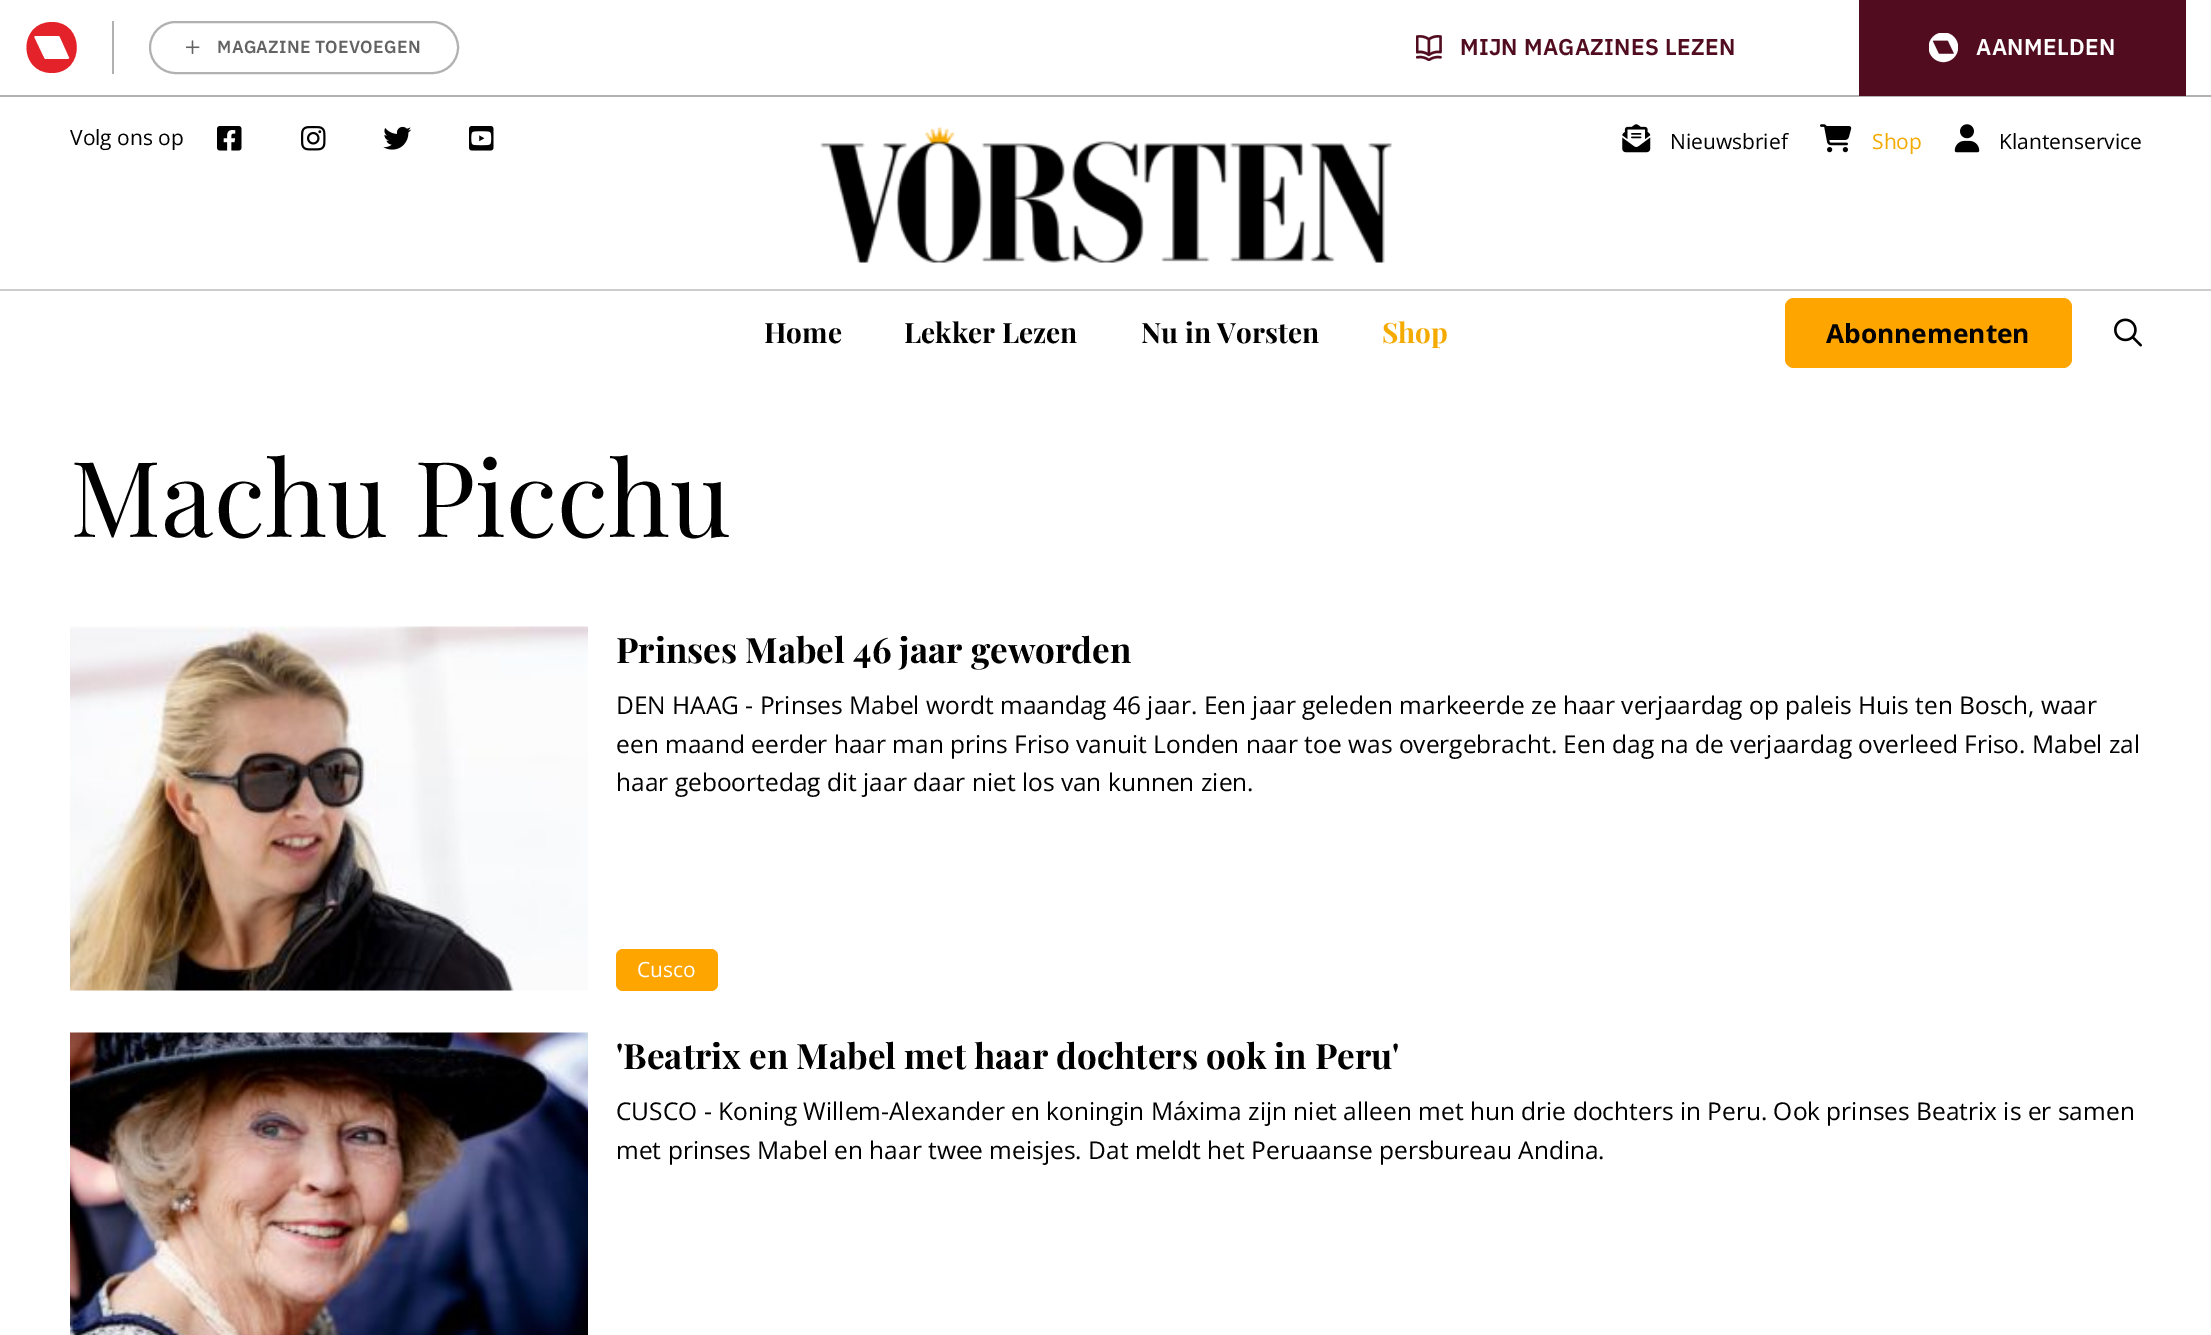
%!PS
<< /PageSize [2211 1335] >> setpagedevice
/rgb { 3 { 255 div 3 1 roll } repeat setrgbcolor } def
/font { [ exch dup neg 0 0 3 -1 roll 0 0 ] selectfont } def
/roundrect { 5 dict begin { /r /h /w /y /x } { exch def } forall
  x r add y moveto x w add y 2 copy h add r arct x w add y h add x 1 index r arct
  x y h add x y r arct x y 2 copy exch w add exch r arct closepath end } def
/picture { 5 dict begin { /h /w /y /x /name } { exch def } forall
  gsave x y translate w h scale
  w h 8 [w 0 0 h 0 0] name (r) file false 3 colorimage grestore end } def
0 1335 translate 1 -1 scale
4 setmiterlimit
255 255 255 rgb
0 0 2211 1335 rectfill
178 178 178 rgb
0 95 2211 2 rectfill
178 177 177 rgb
112 21 2 53 rectfill
228 34 41 rgb
68 59 moveto 45 59 lineto 44 58 lineto 34 37 lineto 34 37 34 36 35 36 curveto 59 36 lineto 60 37 lineto 69 57 lineto 70 58 69 59 68 59 curveto closepath 52 22 moveto 18 22 18 73 52 73 curveto 85 73 85 22 52 22 curveto closepath eofill
178 177 177 rgb
2 setlinewidth
150 22 308 51 25.5 roundrect stroke
(img/1.rgb) 186 40 14 14 picture
(img/2.rgb) 1416 35 26 26 picture
82 12 32 rgb
1859 0 327 96 rectfill
(img/3.rgb) 1929 33 29 30 picture
204 204 204 rgb
0 289 2211 2 rectfill
(img/4.rgb) 217 126 25 25 picture
(img/5.rgb) 301 126 25 25 picture
(img/6.rgb) 383 126 29 24 picture
(img/7.rgb) 469 126 25 25 picture
(img/8.rgb) 820 127 572 136 picture
(img/9.rgb) 1622 124 29 29 picture
(img/10.rgb) 1820 124 32 29 picture
(img/11.rgb) 1954 124 26 29 picture
255 165 0 rgb
1785 298 287 70 9 roundrect fill
(img/12.rgb) 2114 318 28 29 picture
(img/13.rgb) 70 626 518 365 picture
616 949 102 42 7 roundrect fill
(img/14.rgb) 70 1032 518 303 picture
/IBMPlexSans-SemiBold 17.5 font
100 99 99 rgb
217 53 moveto 0.3 0 (MAGAZINE TOEVOEGEN) ashow
/IBMPlexSans-SemiBold 22.75 font
82 12 32 rgb
1460 55 moveto 0.3 0 (MIJN MAGAZINES LEZEN) ashow
255 255 255 rgb
1976 55 moveto 0.3 0 (AANMELDEN) ashow
/OpenSans-Regular 21 font
0 0 0 rgb
70 145 moveto (Volg ons op) show
1670 149 moveto (Nieuwsbrief) show
245 170 0 rgb
1872 149 moveto (Shop) show
0 0 0 rgb
1999 149 moveto (Klantenservice) show
/PlayfairDisplay-Bold 28 font
[
  [(Home) 764 343]
  [(Lekker Lezen) 904 343]
  [(Nu in Vorsten) 1141 343]
] { aload pop moveto show } forall
245 170 0 rgb
1382 343 moveto (Shop) show
/OpenSans-Bold 26.25 font
0 0 0 rgb
1826 343 moveto (Abonnementen) show
/PlayfairDisplay-Regular 105 font
70 537 moveto (Machu Picchu) show
/PlayfairDisplay-Bold 35 font
616 663 moveto (Prinses Mabel 46 jaar geworden) show
/OpenSans-Regular 24.5 font
[
  [(DEN HAAG - Prinses Mabel wordt maandag 46 jaar. Een jaar geleden markeerde ze haar verjaardag op paleis Huis ten Bosch, waar) 616 714]
  [(een maand eerder haar man prins Friso vanuit Londen naar toe was overgebracht. Een dag na de verjaardag overleed Friso. Mabel zal) 616 753]
  [(haar geboortedag dit jaar daar niet los van kunnen zien.) 616 791]
] { aload pop moveto show } forall
/OpenSans-Regular 21 font
255 255 255 rgb
637 977 moveto (Cusco) show
/PlayfairDisplay-Bold 35 font
0 0 0 rgb
616 1069 moveto ('Beatrix en Mabel met haar dochters ook in Peru') show
/OpenSans-Regular 24.5 font
616 1120 moveto (CUSCO - Koning Willem-Alexander en koningin Máxima zijn niet alleen met hun drie dochters in Peru. Ook prinses Beatrix is er samen) show
616 1159 moveto (met prinses Mabel en haar twee meisjes. Dat meldt het Peruaanse persbureau Andina.) show
showpage
